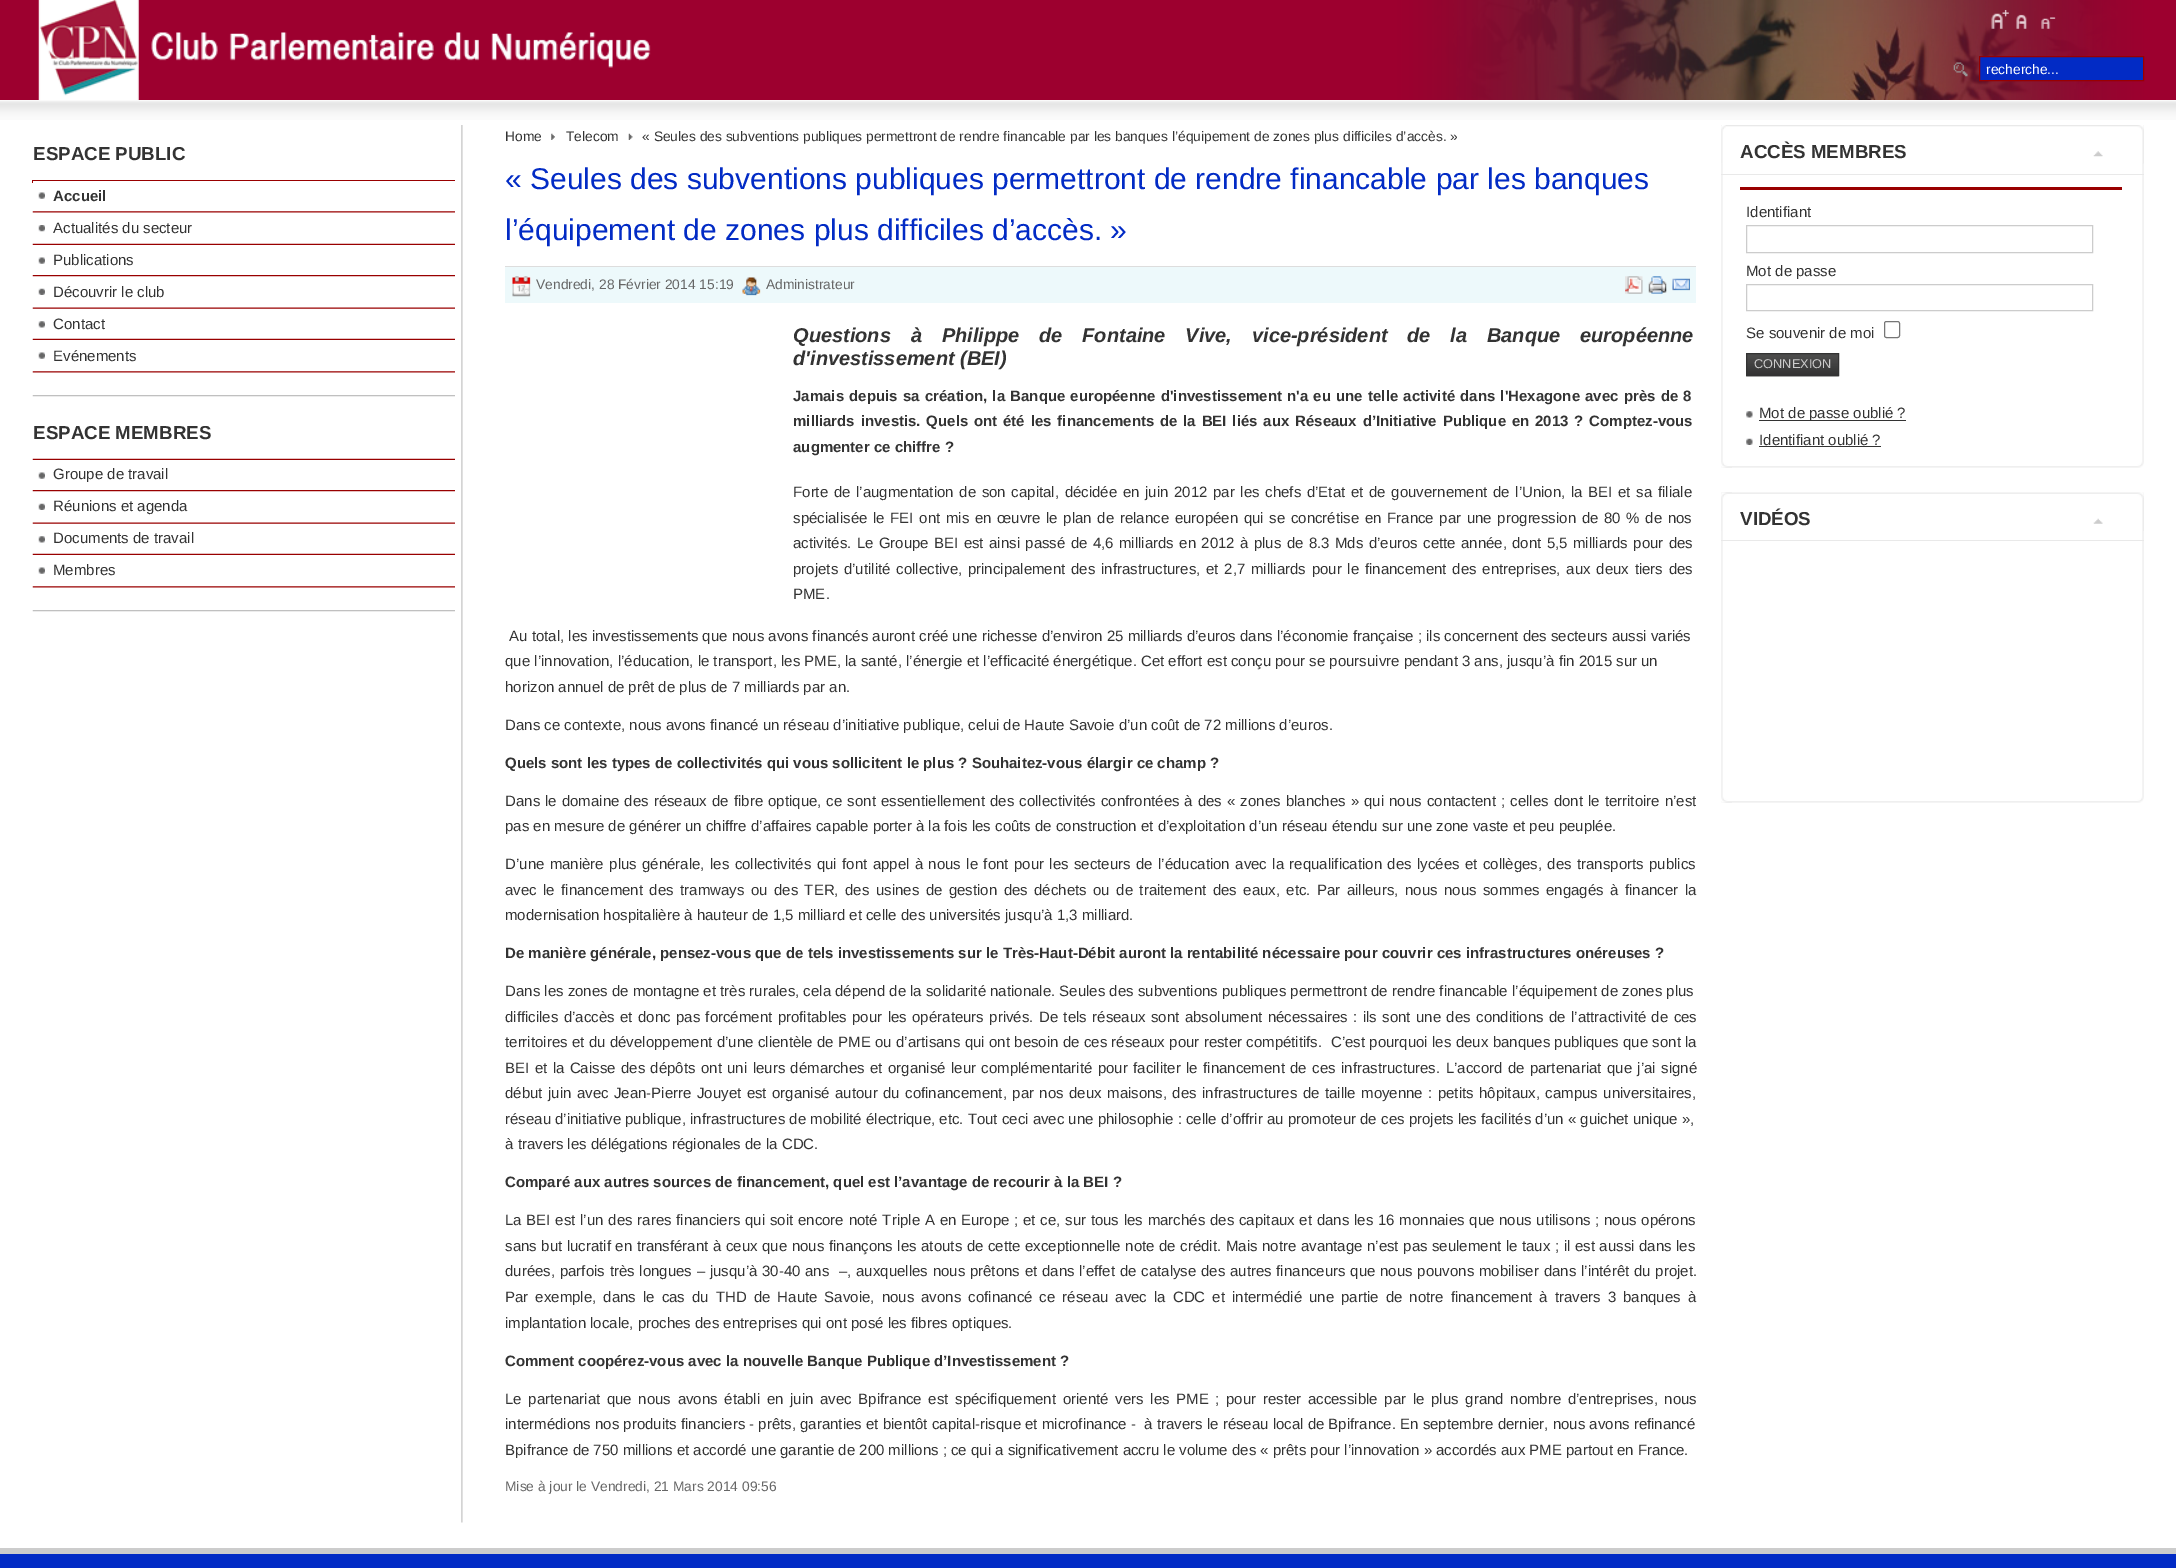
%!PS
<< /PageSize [2176 1568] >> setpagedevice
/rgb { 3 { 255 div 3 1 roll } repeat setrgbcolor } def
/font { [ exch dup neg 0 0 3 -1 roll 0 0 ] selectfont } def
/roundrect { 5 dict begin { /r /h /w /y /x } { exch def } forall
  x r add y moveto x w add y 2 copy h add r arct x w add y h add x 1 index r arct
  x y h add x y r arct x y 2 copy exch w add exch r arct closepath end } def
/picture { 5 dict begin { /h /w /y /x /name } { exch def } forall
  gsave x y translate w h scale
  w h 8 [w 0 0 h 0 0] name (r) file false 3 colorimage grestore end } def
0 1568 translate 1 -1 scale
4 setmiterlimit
255 255 255 rgb
0 0 2176 1568 rectfill
157 0 47 rgb
0 0 2176 100 rectfill
(img/1.rgb) 1453 0 649 100 picture
(img/2.rgb) 38 0 613 100 picture
(img/3.rgb) 1393 0 751 100 picture
(img/4.rgb) 1991 10 18 19 picture
(img/5.rgb) 2016 14 11 15 picture
(img/6.rgb) 2041 17 15 12 picture
(img/7.rgb) 1953 62 15 15 picture
2 43 197 rgb
1979.5 56.5 moveto 2143.5 56.5 lineto 2143.5 80.5 lineto 1979.5 80.5 lineto closepath gsave fill grestore
153 0 0 rgb
stroke
(img/8.rgb) 0 100 2176 20 picture
(img/9.rgb) 461 125 2 1398 picture
(img/10.rgb) 32 395 423 2 picture
32 180 423 3 rectfill
255 255 255 rgb
33 181 422 2 rectfill
(img/11.rgb) 32 211 423 2 picture
(img/12.rgb) 38 192 7 7 picture
(img/13.rgb) 32 243 423 2 picture
(img/14.rgb) 38 225 7 7 picture
(img/15.rgb) 32 275 423 2 picture
(img/12.rgb) 38 257 7 7 picture
(img/16.rgb) 32 307 423 2 picture
(img/17.rgb) 38 288 7 7 picture
(img/13.rgb) 32 338 423 2 picture
(img/18.rgb) 38 321 7 7 picture
(img/11.rgb) 32 371 423 2 picture
(img/12.rgb) 38 352 7 7 picture
(img/10.rgb) 32 610 423 2 picture
(img/13.rgb) 32 458 423 2 picture
(img/15.rgb) 32 490 423 2 picture
(img/12.rgb) 38 472 7 7 picture
(img/16.rgb) 32 522 423 2 picture
(img/17.rgb) 38 503 7 7 picture
(img/13.rgb) 32 553 423 2 picture
(img/18.rgb) 38 536 7 7 picture
(img/11.rgb) 32 586 423 2 picture
(img/12.rgb) 38 567 7 7 picture
(img/19.rgb) 551 133 4 7 picture
(img/20.rgb) 628 133 5 7 picture
237 249 251 rgb
505 267 1191 36 rectfill
221 221 221 rgb
505 266 1191 1 rectfill
(img/21.rgb) 512 276 19 21 picture
(img/22.rgb) 742 277 19 19 picture
(img/23.rgb) 1625 276 18 18 picture
(img/24.rgb) 1648 276 19 18 picture
(img/25.rgb) 1672 278 18 13 picture
(img/26.rgb) 1721 125 423 343 picture
(img/27.rgb) 1721 125 11 343 picture
(img/28.rgb) 1721 125 423 39 picture
(img/29.rgb) 1721 125 5 39 picture
(img/30.rgb) 2093 151 10 6 picture
233 233 233 rgb
1721 174 423 1 rectfill
153 0 0 rgb
1740 187 382 3 rectfill
204 204 204 rgb
1746.5 225.5 346 27 rectstroke
1746.5 284.5 346 26 rectstroke
118 118 118 rgb
1884.5 321.5 15 16 2 roundrect stroke
(img/31.rgb) 1746 354 93 23 picture
51 51 51 rgb
1746.5 353.5 92 22 rectstroke
(img/32.rgb) 1746 411 7 7 picture
1759 420 147 1 rectfill
(img/33.rgb) 1746 438 7 7 picture
1759 446 122 1 rectfill
(img/34.rgb) 1721 492 423 311 picture
(img/35.rgb) 1721 492 11 311 picture
(img/36.rgb) 1721 492 423 39 picture
(img/37.rgb) 1721 492 11 39 picture
(img/38.rgb) 2093 518 10 6 picture
[
  [1721 540 423 1 233 233 233]
  [0 1554 2176 14 2 43 197]
  [0 1548 2176 6 204 204 204]
] { aload pop rgb rectfill } forall
/LiberationSans-Regular 13.8 font
255 255 255 rgb
1986 74 moveto (recherche...) show
/LiberationSans-Bold 18.75 font
51 51 51 rgb
33 160 moveto (ESPACE PUBLIC) show
/LiberationSans-Bold 15 font
53 201 moveto (Accueil) show
/LiberationSans-Regular 15 font
[
  [(Actualités du secteur) 53 233]
  [(Publications) 53 265]
  [(Découvrir le club) 53 297]
  [(Contact) 53 329]
  [(Evénements) 53 361]
] { aload pop moveto show } forall
/LiberationSans-Bold 18.75 font
33 439 moveto (ESPACE MEMBRES) show
/LiberationSans-Regular 15 font
[
  [(Groupe de travail) 53 479]
  [(Réunions et agenda) 53 511]
  [(Documents de travail) 53 543]
  [(Membres) 53 575]
] { aload pop moveto show } forall
/LiberationSans-Regular 13.8 font
[
  [(Home) 505 141]
  [(Telecom) 566 141]
  [(« Seules des subventions publiques permettront de rendre financable par les banques l’équipement de zones plus difficiles d’accès. ») 642 141]
] { aload pop moveto show } forall
/LiberationSans-Regular 30 font
2 43 197 rgb
505 189 moveto (« Seules des subventions publiques permettront de rendre financable par les banques) show
505 240 moveto (l’équipement de zones plus difficiles d’accès. ») show
/LiberationSans-Regular 13.8 font
102 102 102 rgb
536 289 moveto (Vendredi, 28 Février 2014 15:19) show
766 289 moveto (Administrateur) show
/LiberationSans-BoldItalic 20 font
51 51 51 rgb
793 342 moveto 14.25 0 32 (Questions à Philippe de Fontaine Vive, vice-président de la Banque européenne) widthshow
793 365 moveto (d'investissement \(BEI\)) show
/LiberationSans-Bold 15 font
793 401 moveto 1.1 0 32 (Jamais depuis sa création, la Banque européenne d'investissement n'a eu une telle activité dans l'Hexagone avec près de 8) widthshow
793 426 moveto 1.7 0 32 (milliards investis. Quels ont été les financements de la BEI liés aux Réseaux d’Initiative Publique en 2013 ? Comptez-vous) widthshow
793 452 moveto (augmenter ce chiffre ?) show
/LiberationSans-Regular 15 font
793 497 moveto 1.5 0 32 (Forte de l’augmentation de son capital, décidée en juin 2012 par les chefs d’Etat et de gouvernement de l’Union, la BEI et sa filiale) widthshow
793 523 moveto 1.5 0 32 (spécialisée le FEI ont mis en œuvre le plan de relance européen qui se concrétise en France par une progression de 80 % de nos) widthshow
793 548 moveto 1.2 0 32 (activités. Le Groupe BEI est ainsi passé de 4,6 milliards en 2012 à plus de 8.3 Mds d’euros cette année, dont 5,5 milliards pour des) widthshow
793 574 moveto 1.6 0 32 (projets d’utilité collective, principalement des infrastructures, et 2,7 milliards pour le financement des entreprises, aux deux tiers des) widthshow
[
  [(PME.) 793 599]
  [(Au total, les investissements que nous avons financés auront créé une richesse d’environ 25 milliards d’euros dans l’économie française ; ils concernent des secteurs aussi variés) 509 641]
  [(que l’innovation, l’éducation, le transport, les PME, la santé, l’énergie et l’efficacité énergétique. Cet effort est conçu pour se poursuivre pendant 3 ans, jusqu’à fin 2015 sur un) 505 666]
  [(horizon annuel de prêt de plus de 7 milliards par an.) 505 692]
  [(Dans ce contexte, nous avons financé un réseau d’initiative publique, celui de Haute Savoie d’un coût de 72 millions d’euros.) 505 730]
] { aload pop moveto show } forall
/LiberationSans-Bold 15 font
505 768 moveto (Quels sont les types de collectivités qui vous sollicitent le plus ? Souhaitez-vous élargir ce champ ?) show
/LiberationSans-Regular 15 font
505 806 moveto 0.9 0 32 (Dans le domaine des réseaux de fibre optique, ce sont essentiellement des collectivités confrontées à des « zones blanches » qui nous contactent ; celles dont le territoire n’est) widthshow
505 831 moveto (pas en mesure de générer un chiffre d’affaires capable porter à la fois les coûts de construction et d’exploitation d’un réseau étendu sur une zone vaste et peu peuplée.) show
505 869 moveto 1.25 0 32 (D’une manière plus générale, les collectivités qui font appel à nous le font pour les secteurs de l’éducation avec la requalification des lycées et collèges, des transports publics) widthshow
505 895 moveto 2.3 0 32 (avec le financement des tramways ou des TER, des usines de gestion des déchets ou de traitement des eaux, etc. Par ailleurs, nous nous sommes engagés à financer la) widthshow
505 920 moveto (modernisation hospitalière à hauteur de 1,5 milliard et celle des universités jusqu’à 1,3 milliard.) show
/LiberationSans-Bold 15 font
505 958 moveto (De manière générale, pensez-vous que de tels investissements sur le Très-Haut-Débit auront la rentabilité nécessaire pour couvrir ces infrastructures onéreuses ?) show
/LiberationSans-Regular 15 font
505 996 moveto (Dans les zones de montagne et très rurales, cela dépend de la solidarité nationale. Seules des subventions publiques permettront de rendre financable l’équipement de zones plus) show
505 1022 moveto 1.25 0 32 (difficiles d’accès et donc pas forcément profitables pour les opérateurs privés. De tels réseaux sont absolument nécessaires : ils sont une des conditions de l’attractivité de ces) widthshow
505 1047 moveto 0.2 0 32 (territoires et du développement d’une clientèle de PME ou d’artisans qui ont besoin de ces réseaux pour rester compétitifs.  C’est pourquoi les deux banques publiques que sont la) widthshow
505 1073 moveto 1.25 0 32 (BEI et la Caisse des dépôts ont uni leurs démarches et organisé leur complémentarité pour faciliter le financement de ces infrastructures. L’accord de partenariat que j’ai signé) widthshow
505 1098 moveto 1.3 0 32 (début juin avec Jean-Pierre Jouyet est organisé autour du cofinancement, par nos deux maisons, des infrastructures de taille moyenne : petits hôpitaux, campus universitaires,) widthshow
505 1124 moveto (réseau d’initiative publique, infrastructures de mobilité électrique, etc. Tout ceci avec une philosophie : celle d’offrir au promoteur de ces projets les facilités d’un « guichet unique »,) show
505 1149 moveto (à travers les délégations régionales de la CDC.) show
/LiberationSans-Bold 15 font
505 1187 moveto (Comparé aux autres sources de financement, quel est l’avantage de recourir à la BEI ?) show
/LiberationSans-Regular 15 font
505 1225 moveto 0.6 0 32 (La BEI est l’un des rares financiers qui soit encore noté Triple A en Europe ; et ce, sur tous les marchés des capitaux et dans les 16 monnaies que nous utilisons ; nous opérons) widthshow
505 1251 moveto 0.4 0 32 (sans but lucratif en transférant à ceux que nous finançons les atouts de cette exceptionnelle note de crédit. Mais notre avantage n’est pas seulement le taux ; il est aussi dans les) widthshow
505 1276 moveto 0.6 0 32 (durées, parfois très longues – jusqu’à 30-40 ans  –, auxquelles nous prêtons et dans l’effet de catalyse des autres financeurs que nous pouvons mobiliser dans l’intérêt du projet.) widthshow
505 1302 moveto 2.9 0 32 (Par exemple, dans le cas du THD de Haute Savoie, nous avons cofinancé ce réseau avec la CDC et intermédié une partie de notre financement à travers 3 banques à) widthshow
505 1328 moveto (implantation locale, proches des entreprises qui ont posé les fibres optiques.) show
/LiberationSans-Bold 15 font
505 1366 moveto (Comment coopérez-vous avec la nouvelle Banque Publique d’Investissement ?) show
/LiberationSans-Regular 15 font
505 1404 moveto 2.5 0 32 (Le partenariat que nous avons établi en juin avec Bpifrance est spécifiquement orienté vers les PME ; pour rester accessible par le plus grand nombre d’entreprises, nous) widthshow
505 1429 moveto (intermédions nos produits financiers - prêts, garanties et bientôt capital-risque et microfinance -  à travers le réseau local de Bpifrance. En septembre dernier, nous avons refinancé) show
505 1455 moveto (Bpifrance de 750 millions et accordé une garantie de 200 millions ; ce qui a significativement accru le volume des « prêts pour l’innovation » accordés aux PME partout en France.) show
/LiberationSans-Regular 13.8 font
102 102 102 rgb
505 1491 moveto (Mise à jour le Vendredi, 21 Mars 2014 09:56) show
/LiberationSans-Bold 18.75 font
51 51 51 rgb
1740 158 moveto (ACCÈS MEMBRES) show
/LiberationSans-Regular 15 font
[
  [(Identifiant) 1746 217]
  [(Mot de passe) 1746 276]
  [(Se souvenir de moi) 1746 338]
] { aload pop moveto show } forall
/LiberationSans-Regular 12.75 font
204 204 204 rgb
1754 368 moveto (CONNEXION) show
/LiberationSans-Regular 15 font
51 51 51 rgb
1759 418 moveto (Mot de passe oublié ?) show
1759 445 moveto (Identifiant oublié ?) show
/LiberationSans-Bold 18.75 font
1740 525 moveto (VIDÉOS) show
showpage
